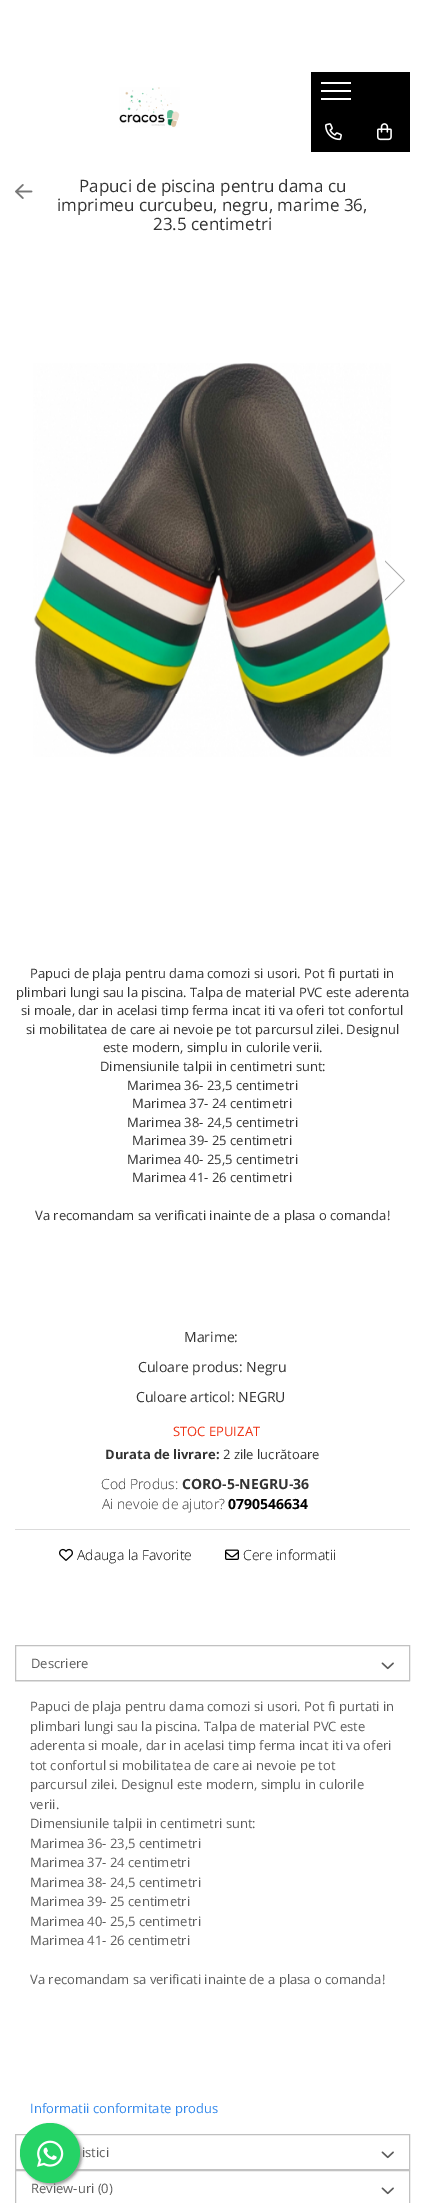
%!PS
<< /PageSize [425 2203] /PageUsesTransparency true >> setpagedevice
/rgb { 3 { 255 div 3 1 roll } repeat setrgbcolor } def
/font { [ exch dup neg 0 0 3 -1 roll 0 0 ] selectfont } def
/alpha { dup .setfillconstantalpha .setstrokeconstantalpha } def
/circle { newpath 0 360 arc closepath } def
/roundrect { 5 dict begin { /r /h /w /y /x } { exch def } forall
  x r add y moveto x w add y 2 copy h add r arct x w add y h add x 1 index r arct
  x y h add x y r arct x y 2 copy exch w add exch r arct closepath end } def
/shadow { 12 dict begin { /a /b /q /h /w /y /x } { exch def } forall gsave /was 0 def
  9 -2 -9 { dup b mul 4 div /e exch def 1 sub .425 mul 2.718 exch exp 1 add a .99 .min exch div /now exch def
    1 1 now sub 1 was sub div sub alpha /was now def
    w h .min e 2 mul add 0 gt { x e sub y e sub w e 2 mul add h e 2 mul add
      q e add b .6 mul add w h .min 2 div e add .min 0 .max roundrect fill } if } for grestore end } def
/picture { 5 dict begin { /h /w /y /x /name } { exch def } forall
  gsave x y translate w h scale
  w h 8 [w 0 0 h 0 0] name (r) file false 3 colorimage grestore end } def
0 .pushpdf14devicefilter
0 2203 translate 1 -1 scale
4 setmiterlimit
255 255 255 rgb
0 0 425 2203 rectfill
(img/1.rgb) 119 87 61 41 picture
[
  [311 72 99 80 0 0 0]
  [321 90 30 2 255 255 255]
  [321 82 30 2 255 255 255]
  [321 98 30 2 255 255 255]
] { aload pop rgb rectfill } forall
(img/2.rgb) 325 123 17 18 picture
(img/3.rgb) 377 123 15 18 picture
(img/4.rgb) 15 184 18 15 picture
(img/5.rgb) 33 363 358 394 picture
(img/6.rgb) 385 560 20 41 picture
219 219 219 rgb
15 1529 395 1 rectfill
(img/7.rgb) 59 1548 14 13 picture
(img/8.rgb) 225 1549 14 11 picture
193 193 193 rgb
15.5 1645.5 394 35 rectstroke
(img/9.rgb) 381 1662 13 8 picture
223 223 223 rgb
15 1681 395 1 rectfill
193 193 193 rgb
15.5 2134.5 394 35 rectstroke
(img/9.rgb) 381 2151 13 8 picture
15.5 2170.5 394 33 rectstroke
(img/9.rgb) 381 2187 13 8 picture
153 153 153 rgb
22 2125 60 60 30 1.5 1 shadow
37 211 102 rgb
50 2153 30 circle fill
(img/10.rgb) 37 2140 27 27 picture
/OpenSans-Regular 17 font
51 51 51 rgb
[
  [(Papuci de piscina pentru dama cu) 79 192]
  [(imprimeu curcubeu, negru, marime 36,) 57 211]
  [(23.5 centimetri) 153 230]
] { aload pop moveto show } forall
/OpenSans-Regular 13 font
[
  [(Papuci de plaja pentru dama comozi si usori. Pot fi purtati in) 30 978]
  [(plimbari lungi sau la piscina. Talpa de material PVC este aderenta) 16 997]
  [(si moale, dar in acelasi timp ferma incat iti va oferi tot confortul) 21 1015]
  [(si mobilitatea de care ai nevoie pe tot parcursul zilei. Designul) 26 1034]
  [(este modern, simplu in culorile verii.) 103 1052]
  [(Dimensiunile talpii in centimetri sunt:) 100 1071]
  [(Marimea 36- 23,5 centimetri) 127 1090]
  [(Marimea 37- 24 centimetri) 132 1108]
  [(Marimea 38- 24,5 centimetri) 127 1127]
  [(Marimea 39- 25 centimetri) 132 1145]
  [(Marimea 40- 25,5 centimetri) 127 1164]
  [(Marimea 41- 26 centimetri) 132 1182]
  [(Va recomandam sa verificati inainte de a plasa o comanda!) 35 1220]
] { aload pop moveto show } forall
/OpenSans-Regular 14 font
[
  [(Marime:) 184 1342]
  [(Culoare produs: Negru) 138 1372]
  [(Culoare articol: NEGRU) 136 1402]
] { aload pop moveto show } forall
/OpenSans-Regular 13 font
238 50 20 rgb
173 1436 moveto (STOC EPUIZAT) show
/OpenSans-Bold 13 font
51 51 51 rgb
105 1459 moveto (Durata de livrare:) show
/OpenSans-Regular 13 font
223 1459 moveto (2 zile lucrătoare) show
/OpenSans-Light 14 font
101 1489 moveto (Cod Produs:) show
/OpenSans-Bold 14 font
182 1489 moveto (CORO-5-NEGRU-36) show
/OpenSans-Light 14 font
102 1509 moveto (Ai nevoie de ajutor?) show
/OpenSans-Bold 14 font
0 0 0 rgb
228 1509 moveto (0790546634) show
/OpenSans-Light 14 font
77 1560 moveto (Adauga la Favorite) show
243 1560 moveto (Cere informatii) show
/OpenSans-Regular 13 font
91 91 91 rgb
[
  [(Descriere) 31 1668]
  [(Papuci de plaja pentru dama comozi si usori. Pot fi purtati in) 30 1711]
  [(plimbari lungi sau la piscina. Talpa de material PVC este) 30 1731]
  [(aderenta si moale, dar in acelasi timp ferma incat iti va oferi) 30 1750]
  [(tot confortul si mobilitatea de care ai nevoie pe tot) 30 1770]
  [(parcursul zilei. Designul este modern, simplu in culorile) 30 1789]
  [(verii.) 30 1809]
  [(Dimensiunile talpii in centimetri sunt:) 30 1828]
  [(Marimea 36- 23,5 centimetri) 30 1848]
  [(Marimea 37- 24 centimetri) 30 1867]
  [(Marimea 38- 24,5 centimetri) 30 1887]
  [(Marimea 39- 25 centimetri) 30 1906]
  [(Marimea 40- 25,5 centimetri) 30 1926]
  [(Marimea 41- 26 centimetri) 30 1945]
  [(Va recomandam sa verificati inainte de a plasa o comanda!) 30 1984]
] { aload pop moveto show } forall
51 136 235 rgb
30 2113 moveto (Informatii conformitate produs) show
91 91 91 rgb
82 2157 moveto (istici) show
31 2193 moveto (Review-uri \(0\)) show
.poppdf14devicefilter showpage
